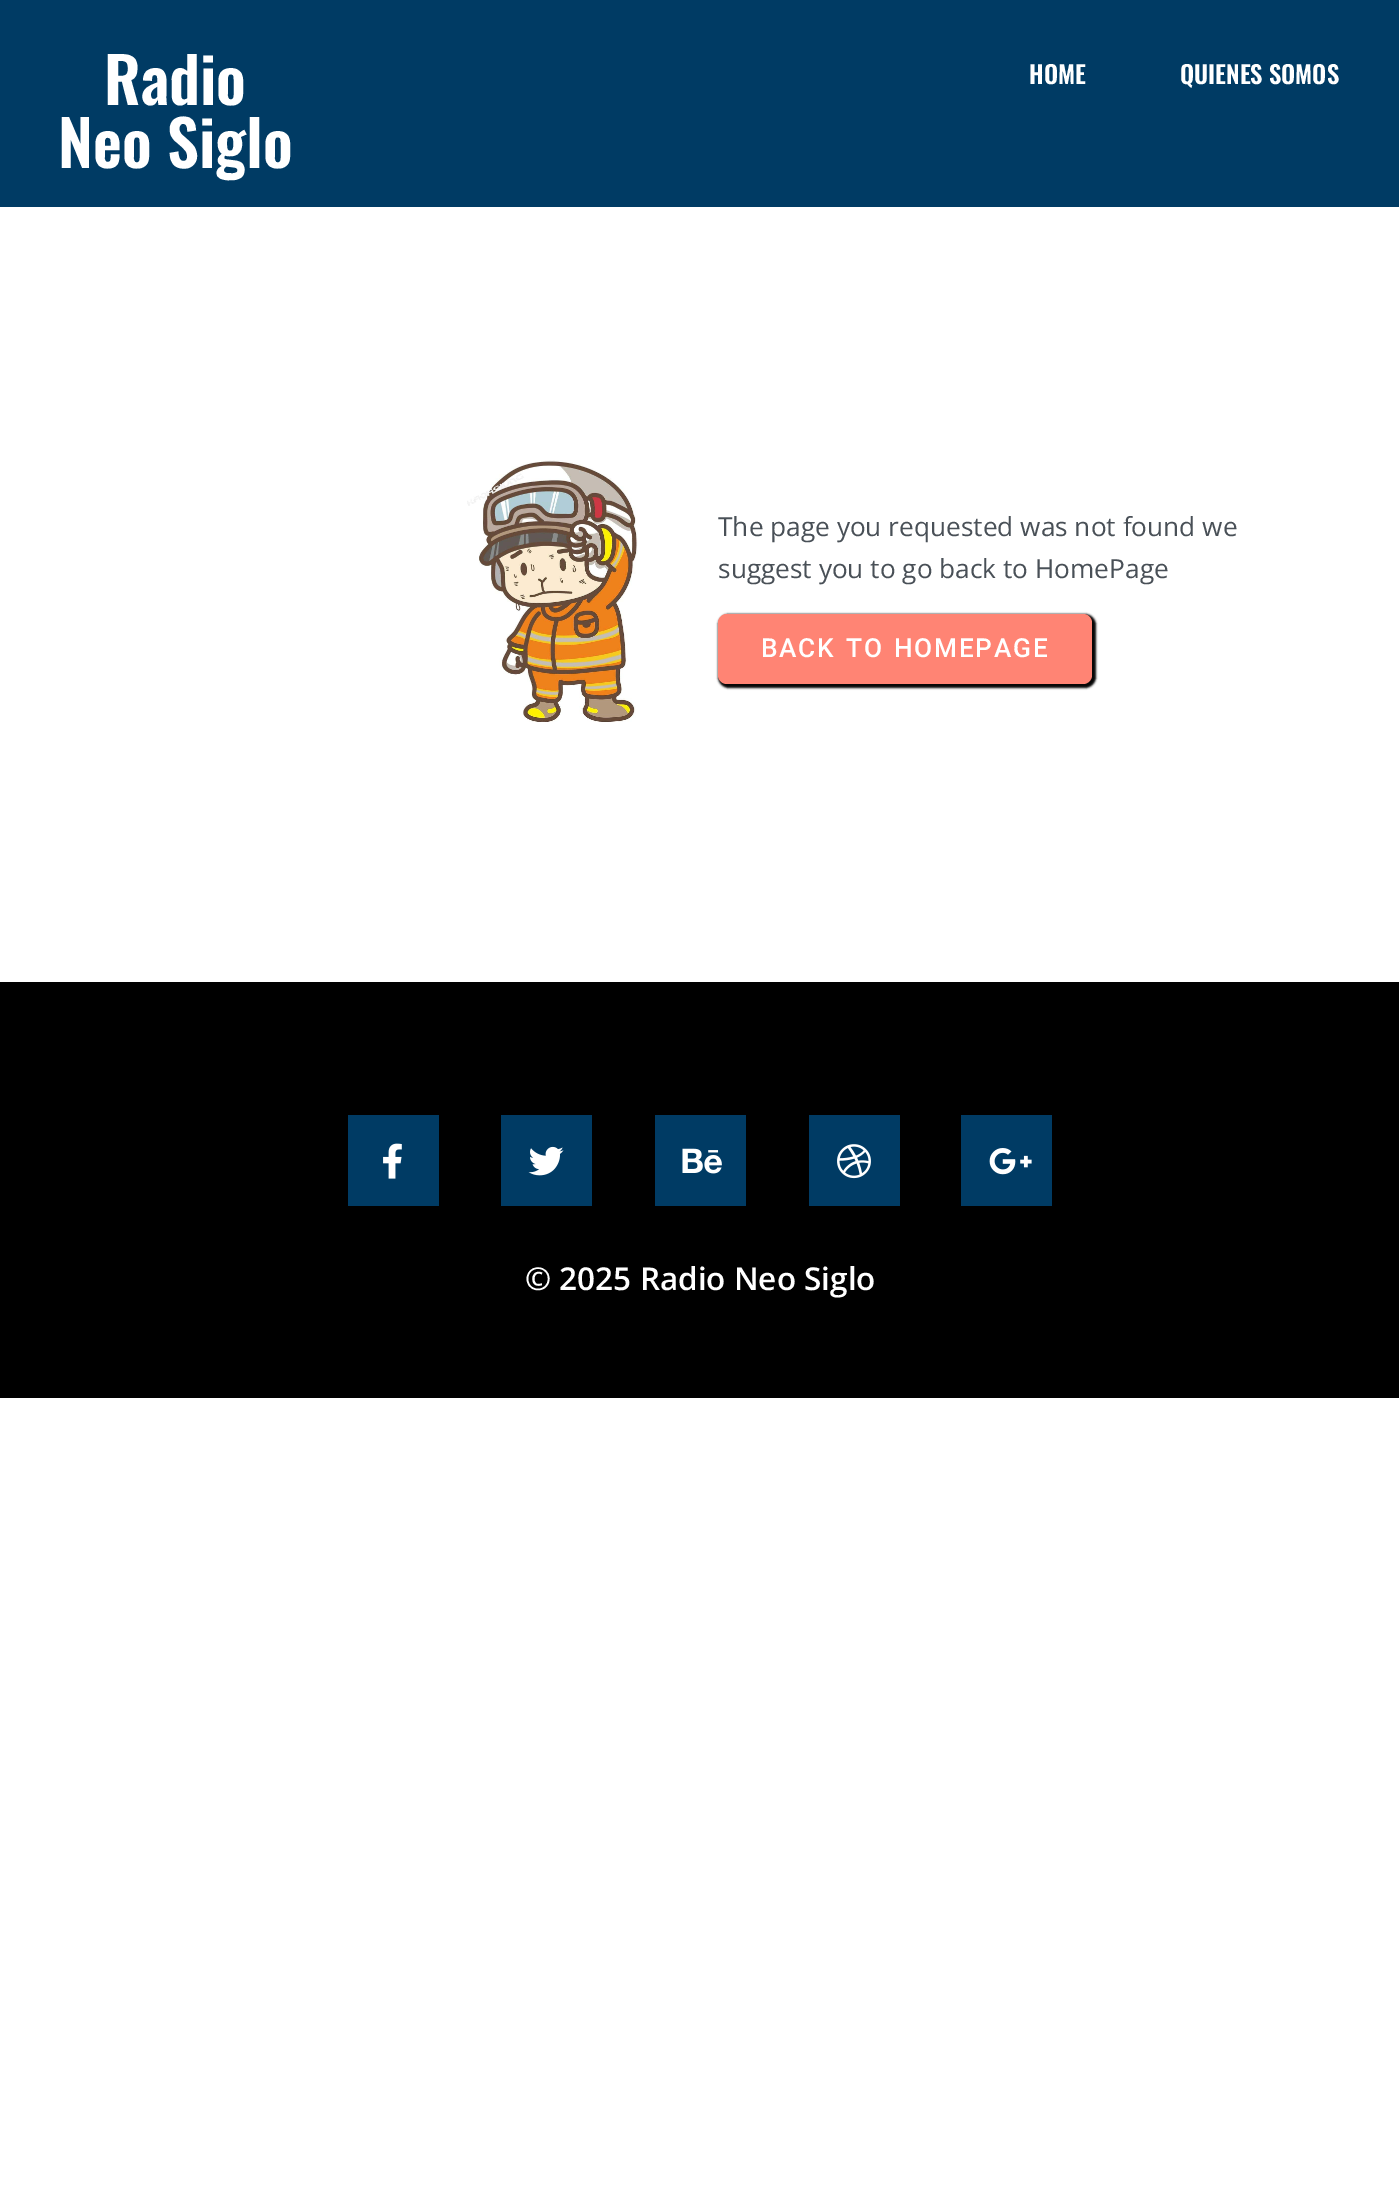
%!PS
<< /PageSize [1399 2193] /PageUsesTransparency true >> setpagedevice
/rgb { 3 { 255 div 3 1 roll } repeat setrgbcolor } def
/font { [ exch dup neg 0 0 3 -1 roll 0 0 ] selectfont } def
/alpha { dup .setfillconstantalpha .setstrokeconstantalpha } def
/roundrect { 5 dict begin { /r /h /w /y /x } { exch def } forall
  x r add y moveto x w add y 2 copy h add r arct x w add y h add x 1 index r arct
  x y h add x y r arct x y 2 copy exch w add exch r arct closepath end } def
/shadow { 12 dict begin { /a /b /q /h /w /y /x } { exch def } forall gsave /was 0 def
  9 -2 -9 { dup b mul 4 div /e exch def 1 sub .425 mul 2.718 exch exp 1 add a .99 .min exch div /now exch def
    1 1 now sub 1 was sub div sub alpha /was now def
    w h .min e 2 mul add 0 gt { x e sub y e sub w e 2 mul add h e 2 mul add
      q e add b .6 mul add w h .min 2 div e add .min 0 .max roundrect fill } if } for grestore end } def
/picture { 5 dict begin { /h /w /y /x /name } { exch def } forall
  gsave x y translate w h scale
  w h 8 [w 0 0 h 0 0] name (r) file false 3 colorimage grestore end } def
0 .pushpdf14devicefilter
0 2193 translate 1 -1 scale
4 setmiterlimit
255 255 255 rgb
0 0 1399 2193 rectfill
0 59 100 rgb
0 0 1399 207 rectfill
(img/1.rgb) 467 460 171 262 picture
0 0 0 rgb
718 614 378 74 11 1 1 shadow
255 132 116 rgb
718 614 374 70 9 roundrect fill
0 0 0 rgb
0 982 1399 416 rectfill
0 59 100 rgb
348 1115 91 91 rectfill
(img/2.rgb) 383 1143 19 36 picture
501 1115 91 91 rectfill
(img/3.rgb) 528 1146 36 30 picture
655 1115 91 91 rectfill
(img/4.rgb) 682 1148 40 26 picture
809 1115 91 91 rectfill
(img/5.rgb) 837 1144 34 35 picture
961 1115 91 91 rectfill
(img/6.rgb) 989 1148 43 27 picture
/Oswald-SemiBold 63 font
255 255 255 rgb
104 105 moveto (Radio) show
58 168 moveto (Neo Siglo) show
/Oswald-SemiBold 24.5 font
1029 84 moveto (HOME) show
1180 84 moveto (QUIENES SOMOS) show
/OpenSans-Regular 26.25 font
73 80 87 rgb
718 536 moveto (The page you requested was not found we) show
718 578 moveto (suggest you to go back to HomePage) show
/Roboto-Medium 26.25 font
255 255 255 rgb
761 657 moveto 2 0 32 1.75 0 (BACK TO HOMEPAGE) awidthshow
/OpenSans-SemiBold 31.5 font
525 1290 moveto (© 2025 Radio Neo Siglo) show
.poppdf14devicefilter showpage
